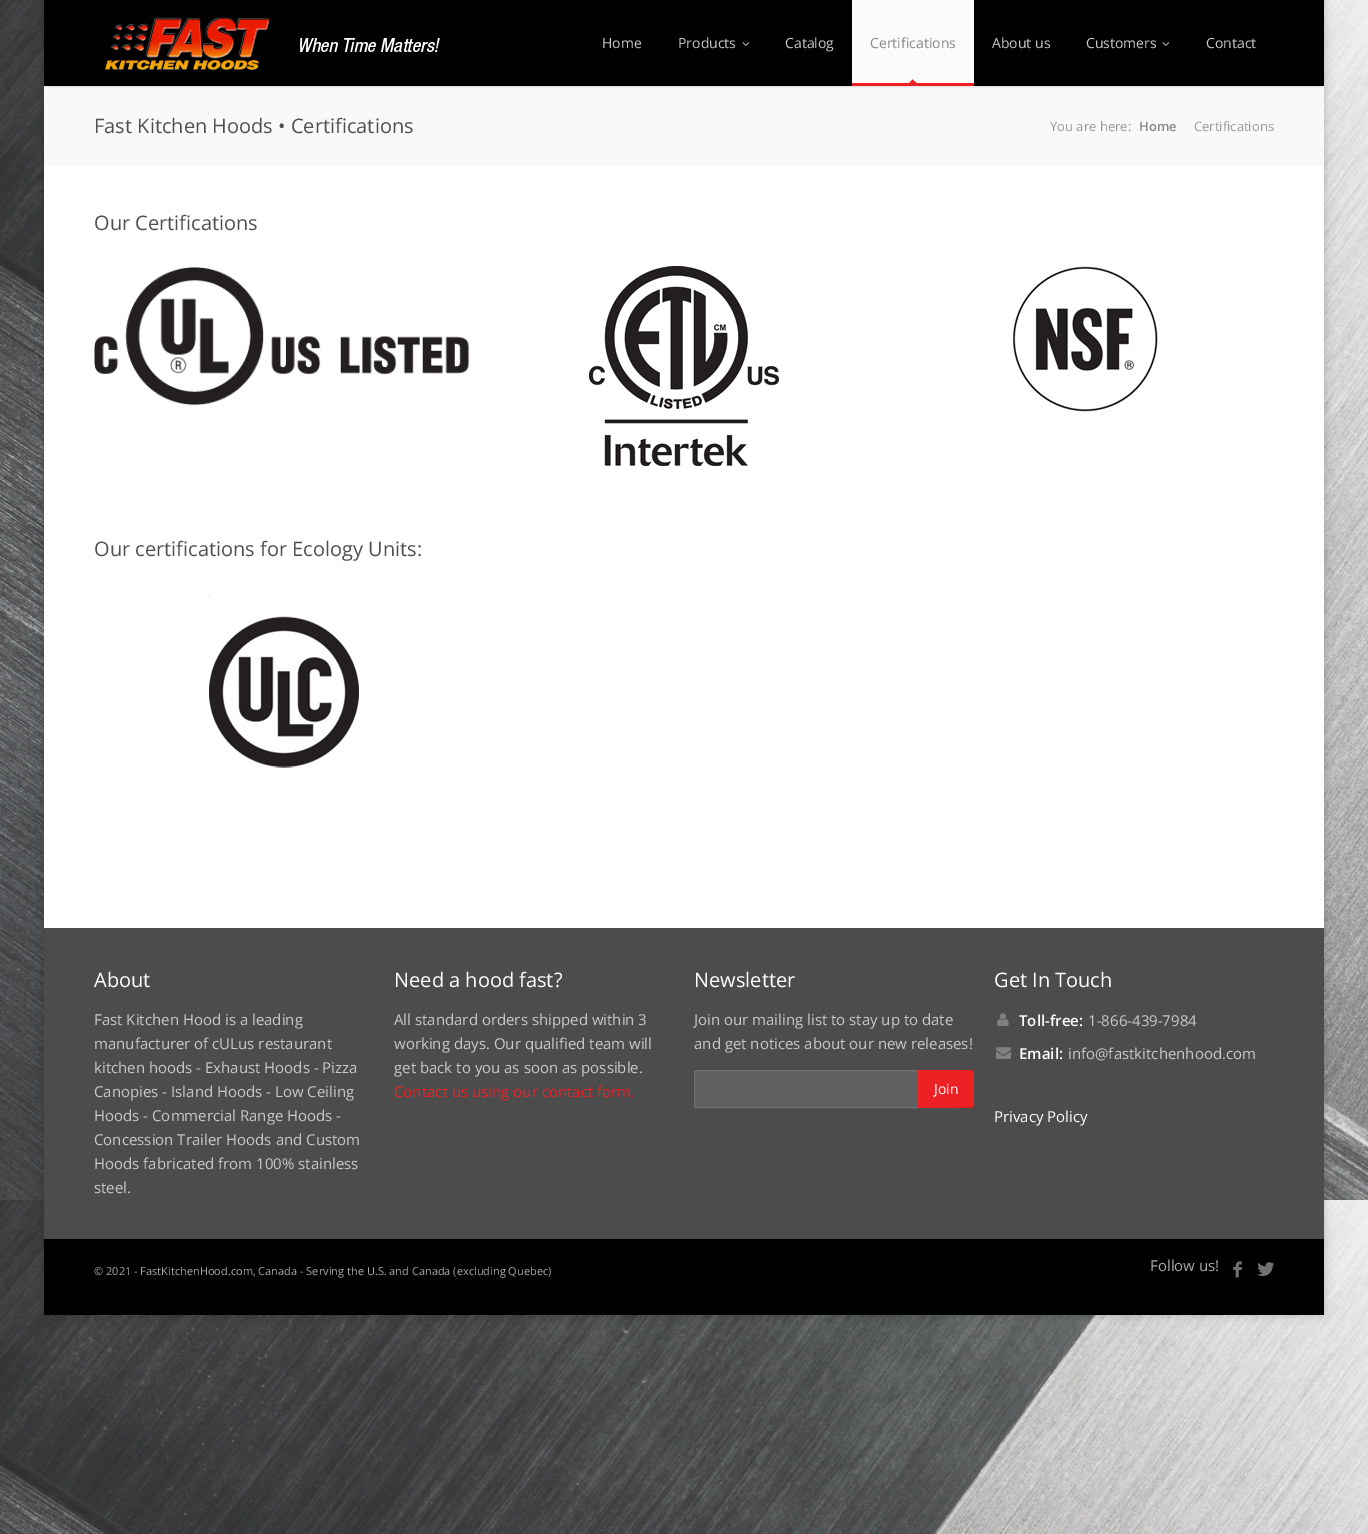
%!PS
<< /PageSize [1368 1534] /PageUsesTransparency true >> setpagedevice
/rgb { 3 { 255 div 3 1 roll } repeat setrgbcolor } def
/font { [ exch dup neg 0 0 3 -1 roll 0 0 ] selectfont } def
/alpha { dup .setfillconstantalpha .setstrokeconstantalpha } def
/roundrect { 5 dict begin { /r /h /w /y /x } { exch def } forall
  x r add y moveto x w add y 2 copy h add r arct x w add y h add x 1 index r arct
  x y h add x y r arct x y 2 copy exch w add exch r arct closepath end } def
/shadow { 12 dict begin { /a /b /q /h /w /y /x } { exch def } forall gsave /was 0 def
  9 -2 -9 { dup b mul 4 div /e exch def 1 sub .425 mul 2.718 exch exp 1 add a .99 .min exch div /now exch def
    1 1 now sub 1 was sub div sub alpha /was now def
    w h .min e 2 mul add 0 gt { x e sub y e sub w e 2 mul add h e 2 mul add
      q e add b .6 mul add w h .min 2 div e add .min 0 .max roundrect fill } if } for grestore end } def
/picture { 5 dict begin { /h /w /y /x /name } { exch def } forall
  gsave x y translate w h scale
  w h 8 [w 0 0 h 0 0] name (r) file false 3 colorimage grestore end } def
0 .pushpdf14devicefilter
0 1534 translate 1 -1 scale
4 setmiterlimit
255 255 255 rgb
0 0 1368 1534 rectfill
(img/1.rgb) 0 0 1368 1534 picture
0 0 0 rgb
44 0 1280 1315 0 5 0.2 shadow
249 249 249 rgb
44 86 1280 80 rectfill
0 0 0 rgb
47 6 1274 80 0 1.5 0.2 shadow
44 0 1280 86 rectfill
(img/2.rgb) 105 17 165 53 picture
(img/3.rgb) 300 38 140 14 picture
(img/4.rgb) 742 42 8 4 picture
251 251 251 rgb
852 0 122 83 rectfill
237 33 36 rgb
852 83 122 3 rectfill
gsave
852 0 122 83 rectclip
912.5 79.5 moveto 916.5 83 lineto 912.5 86.5 lineto 909 83 lineto closepath fill
grestore
(img/4.rgb) 1162 42 8 4 picture
255 255 255 rgb
44 166 1280 762 rectfill
(img/5.rgb) 94 267 376 139 picture
(img/6.rgb) 589 266 190 200 picture
(img/7.rgb) 1012 266 146 146 picture
(img/8.rgb) 209 594 150 174 picture
76 76 76 rgb
44 928 1280 311 rectfill
96 96 96 rgb
697 1070.5 moveto 957.5 1070.5 lineto 957.5 1107.5 lineto 697 1107.5 lineto 695.5 1107.5 694.5 1106.5 694.5 1105 curveto 694.5 1073 lineto 694.5 1071.5 695.5 1070.5 697 1070.5 curveto closepath gsave fill grestore
112 112 112 rgb
stroke
237 33 36 rgb
918 1070 moveto 971 1070 lineto 972.5 1070 974 1071.5 974 1073 curveto 974 1105 lineto 974 1106.5 972.5 1108 971 1108 curveto 918 1108 lineto closepath fill
0.1 alpha
0 0 0 rgb
918 1107 moveto 918 1108 lineto 971 1108 lineto 973 1108 974 1107 974 1105 curveto 974 1104 lineto 974 1106 973 1107 971 1107 curveto closepath fill
1 alpha
(img/9.rgb) 997 1013 12 13 picture
(img/10.rgb) 996 1047 15 12 picture
44 1239 1280 76 rectfill
(img/11.rgb) 1233 1261 9 17 picture
(img/12.rgb) 1257 1262 18 15 picture
/OpenSans-Regular 14 font
200 200 200 rgb
[
  [(Home) 602 48]
  [(Products) 678 48]
  [(Catalog) 785 48]
] { aload pop moveto show } forall
136 136 136 rgb
870 48 moveto (Certifications) show
200 200 200 rgb
[
  [(About us) 992 48]
  [(Customers) 1086 48]
  [(Contact) 1206 48]
] { aload pop moveto show } forall
/OpenSans-Regular 20 font
80 80 80 rgb
94 133 moveto (Fast Kitchen Hoods • Certifications) show
/OpenSans-Regular 13 font
153 153 153 rgb
1050 131 moveto (You are here:) show
/OpenSans-SemiBold 13 font
136 136 136 rgb
1139 131 moveto (Home) show
/OpenSans-Regular 13 font
153 153 153 rgb
1194 131 moveto (Certifications) show
/OpenSans-Regular 20 font
80 80 80 rgb
94 230 moveto (Our Certifications) show
94 556 moveto (Our certifications for Ecology Units:) show
255 255 255 rgb
94 987 moveto (About) show
/OpenSans-Regular 15 font
200 200 200 rgb
[
  [(Fast Kitchen Hood is a leading) 94 1025]
  [(manufacturer of cULus restaurant) 94 1049]
  [(kitchen hoods - Exhaust Hoods - Pizza) 94 1073]
  [(Canopies - Island Hoods - Low Ceiling) 94 1097]
  [(Hoods - Commercial Range Hoods -) 94 1121]
  [(Concession Trailer Hoods and Custom) 94 1145]
  [(Hoods fabricated from 100% stainless) 94 1169]
  [(steel.) 94 1193]
] { aload pop moveto show } forall
/OpenSans-Regular 20 font
255 255 255 rgb
394 987 moveto (Need a hood fast?) show
/OpenSans-Regular 15 font
200 200 200 rgb
[
  [(All standard orders shipped within 3) 394 1025]
  [(working days. Our qualified team will) 394 1049]
  [(get back to you as soon as possible.) 394 1073]
] { aload pop moveto show } forall
237 33 36 rgb
394 1097 moveto (Contact us using our contact form.) show
/OpenSans-Regular 20 font
255 255 255 rgb
694 987 moveto (Newsletter) show
/OpenSans-Regular 15 font
200 200 200 rgb
694 1025 moveto (Join our mailing list to stay up to date) show
694 1049 moveto (and get notices about our new releases!) show
/OpenSans-Regular 14 font
255 255 255 rgb
934 1094 moveto (Join) show
/OpenSans-Regular 20 font
994 987 moveto (Get In Touch) show
/OpenSans-SemiBold 15 font
1019 1026 moveto (Toll-free:) show
/OpenSans-Regular 15 font
200 200 200 rgb
1088 1026 moveto (1-866-439-7984) show
/OpenSans-SemiBold 15 font
255 255 255 rgb
1019 1059 moveto (Email:) show
/OpenSans-Regular 15 font
200 200 200 rgb
1068 1059 moveto (info@fastkitchenhood.com) show
255 255 255 rgb
994 1122 moveto (Privacy Policy) show
/OpenSans-Regular 11 font
168 168 168 rgb
94 1275 moveto (© 2021 - FastKitchenHood.com, Canada - Serving the U.S. and Canada \(excluding Quebec\)) show
/OpenSans-Regular 15 font
1150 1271 moveto (Follow us!) show
.poppdf14devicefilter showpage
